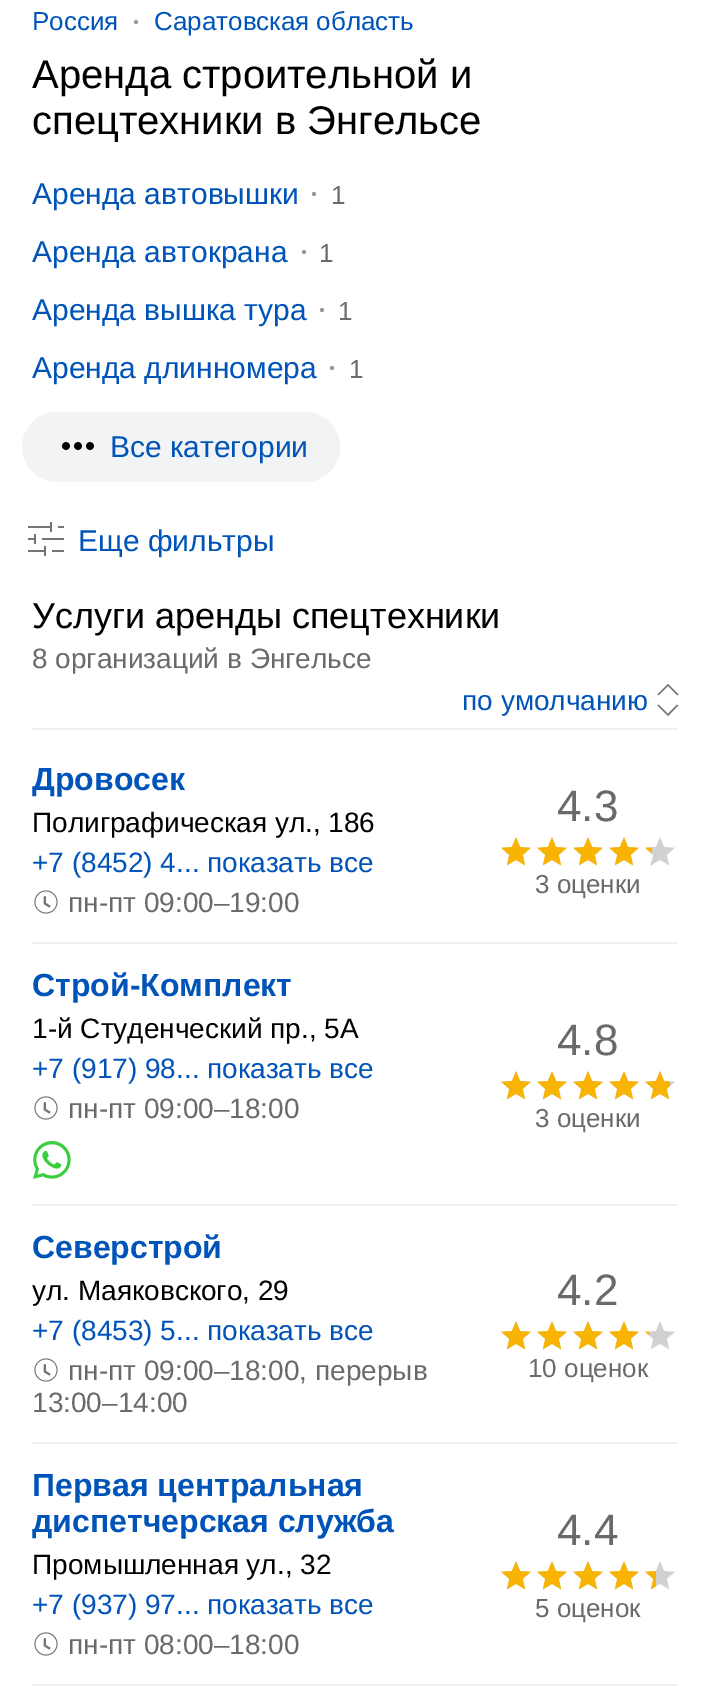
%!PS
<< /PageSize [710 1687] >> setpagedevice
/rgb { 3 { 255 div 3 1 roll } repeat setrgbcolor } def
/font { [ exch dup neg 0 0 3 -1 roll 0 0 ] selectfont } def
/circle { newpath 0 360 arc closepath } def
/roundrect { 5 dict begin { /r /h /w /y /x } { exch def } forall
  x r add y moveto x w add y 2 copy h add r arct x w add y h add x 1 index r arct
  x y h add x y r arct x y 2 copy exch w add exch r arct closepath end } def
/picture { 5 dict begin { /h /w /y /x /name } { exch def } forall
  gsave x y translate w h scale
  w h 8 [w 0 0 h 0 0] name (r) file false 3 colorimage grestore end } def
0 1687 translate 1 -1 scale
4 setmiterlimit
255 255 255 rgb
0 0 710 1687 rectfill
153 153 153 rgb
136 22 2 circle fill
314 194 2 circle fill
304 252 2 circle fill
322 310 2 circle fill
332 368 2 circle fill
241 243 244 rgb
22 412 318 70 35 roundrect fill
(img/1.rgb) 62 442 32 8 picture
(img/2.rgb) 28 522 36 34 picture
241 241 241 rgb
32 728 646 2 rectfill
(img/3.rgb) 657 684 22 32 picture
(img/4.rgb) 34 890 24 24 picture
(img/5.rgb) 501 837 174 29 picture
(img/6.rgb) 501 837 151 29 picture
32 942 646 2 rectfill
(img/4.rgb) 34 1096 24 24 picture
(img/7.rgb) 33 1141 38 38 picture
(img/5.rgb) 501 1071 174 29 picture
(img/8.rgb) 501 1071 169 29 picture
32 1204 646 2 rectfill
(img/4.rgb) 34 1358 24 24 picture
(img/5.rgb) 501 1321 174 29 picture
(img/9.rgb) 501 1321 149 29 picture
32 1442 646 2 rectfill
(img/4.rgb) 34 1632 24 24 picture
(img/5.rgb) 501 1561 174 29 picture
(img/10.rgb) 501 1561 155 29 picture
32 1684 646 2 rectfill
/LiberationSans-Regular 26 font
0 84 185 rgb
32 30 moveto (Россия) show
154 30 moveto (Саратовская область) show
/LiberationSans-Regular 40 font
0 0 0 rgb
32 88 moveto (Аренда строительной и) show
32 134 moveto (спецтехники в Энгельсе) show
/LiberationSans-Regular 30 font
0 84 185 rgb
32 204 moveto (Аренда автовышки) show
/LiberationSans-Regular 26 font
106 106 106 rgb
331 204 moveto (1) show
/LiberationSans-Regular 30 font
0 84 185 rgb
32 262 moveto (Аренда автокрана) show
/LiberationSans-Regular 26 font
106 106 106 rgb
319 262 moveto (1) show
/LiberationSans-Regular 30 font
0 84 185 rgb
32 320 moveto (Аренда вышка тура) show
/LiberationSans-Regular 26 font
106 106 106 rgb
338 320 moveto (1) show
/LiberationSans-Regular 30 font
0 84 185 rgb
32 378 moveto (Аренда длинномера) show
/LiberationSans-Regular 26 font
106 106 106 rgb
349 378 moveto (1) show
/LiberationSans-Regular 30 font
0 84 185 rgb
110 457 moveto (Все категории) show
78 551 moveto (Еще фильтры) show
/LiberationSans-Regular 36 font
0 0 0 rgb
32 628 moveto (Услуги аренды спецтехники) show
/LiberationSans-Regular 28 font
106 106 106 rgb
32 668 moveto (8 организаций в Энгельсе) show
0 84 185 rgb
462 710 moveto (по умолчанию) show
/LiberationSans-Bold 32 font
32 790 moveto (Дровосек) show
/LiberationSans-Regular 28 font
0 0 0 rgb
32 832 moveto (Полиграфическая ул., 186) show
0 84 185 rgb
32 872 moveto (+7 \(8452\) 4... показать все) show
106 106 106 rgb
68 912 moveto (пн-пт 09:00–19:00) show
/LiberationSans-Regular 44 font
557 821 moveto (4.3) show
/LiberationSans-Regular 26 font
535 893 moveto (3 оценки) show
/LiberationSans-Bold 32 font
0 84 185 rgb
32 996 moveto (Строй-Комплект) show
/LiberationSans-Regular 28 font
0 0 0 rgb
32 1038 moveto (1-й Студенческий пр., 5А) show
0 84 185 rgb
32 1078 moveto (+7 \(917\) 98... показать все) show
106 106 106 rgb
68 1118 moveto (пн-пт 09:00–18:00) show
/LiberationSans-Regular 44 font
557 1055 moveto (4.8) show
/LiberationSans-Regular 26 font
535 1127 moveto (3 оценки) show
/LiberationSans-Bold 32 font
0 84 185 rgb
32 1258 moveto (Северстрой) show
/LiberationSans-Regular 28 font
0 0 0 rgb
32 1300 moveto (ул. Маяковского, 29) show
0 84 185 rgb
32 1340 moveto (+7 \(8453\) 5... показать все) show
106 106 106 rgb
68 1380 moveto (пн-пт 09:00–18:00, перерыв) show
32 1412 moveto (13:00–14:00) show
/LiberationSans-Regular 44 font
557 1305 moveto (4.2) show
/LiberationSans-Regular 26 font
528 1377 moveto (10 оценок) show
/LiberationSans-Bold 32 font
0 84 185 rgb
32 1496 moveto (Первая центральная) show
32 1532 moveto (диспетчерская служба) show
/LiberationSans-Regular 28 font
0 0 0 rgb
32 1574 moveto (Промышленная ул., 32) show
0 84 185 rgb
32 1614 moveto (+7 \(937\) 97... показать все) show
106 106 106 rgb
68 1654 moveto (пн-пт 08:00–18:00) show
/LiberationSans-Regular 44 font
557 1545 moveto (4.4) show
/LiberationSans-Regular 26 font
535 1617 moveto (5 оценок) show
showpage
